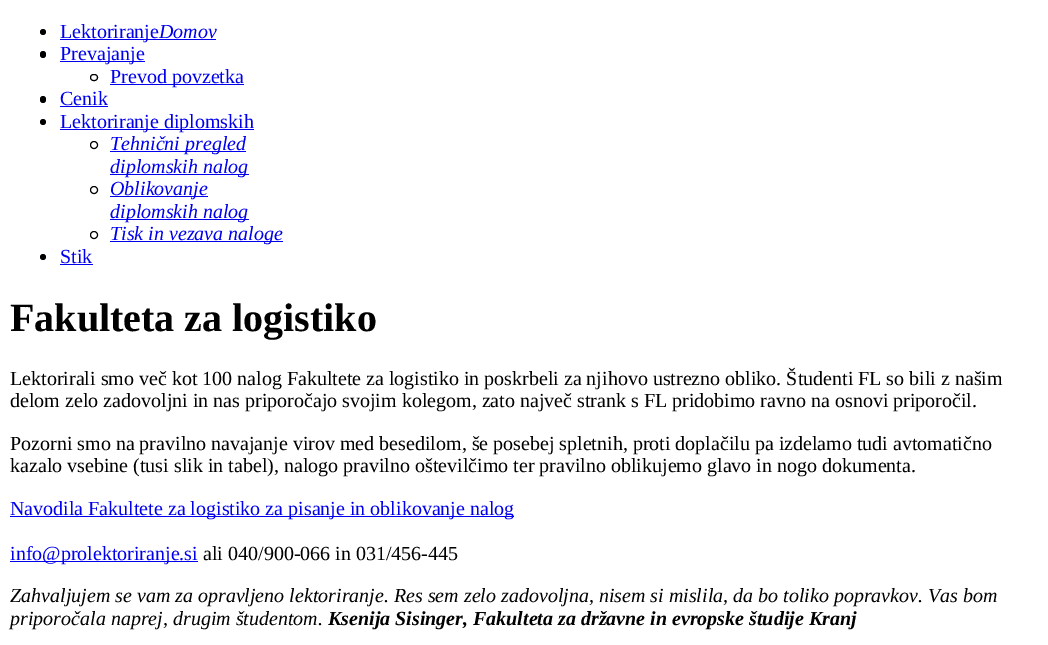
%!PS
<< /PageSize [1048 645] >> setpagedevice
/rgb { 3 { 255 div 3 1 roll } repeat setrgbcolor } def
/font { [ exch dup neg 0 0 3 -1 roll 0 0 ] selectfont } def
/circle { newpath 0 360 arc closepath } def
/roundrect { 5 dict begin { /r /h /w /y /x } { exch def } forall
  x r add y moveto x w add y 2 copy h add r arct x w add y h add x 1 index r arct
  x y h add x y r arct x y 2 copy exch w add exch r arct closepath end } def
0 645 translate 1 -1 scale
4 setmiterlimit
255 255 255 rgb
0 0 1048 645 rectfill
0 0 0 rgb
43 32 3 circle fill
0 0 238 rgb
60 39 156 1 rectfill
0 0 0 rgb
40 51 6 7 3 roundrect fill
0 0 238 rgb
60 61 85 1 rectfill
0 0 0 rgb
90.5 74.5 7 6 3 roundrect stroke
0 0 238 rgb
110 84 134 1 rectfill
0 0 0 rgb
40 96 6 7 3 roundrect fill
0 0 238 rgb
60 106 48 1 rectfill
0 0 0 rgb
43 122 3 circle fill
0 0 238 rgb
60 129 194 1 rectfill
0 0 0 rgb
94 145 3.5 circle stroke
0 0 238 rgb
110 151 136 1 rectfill
110 174 139 1 rectfill
0 0 0 rgb
94 190 3.5 circle stroke
0 0 238 rgb
110 196 98 1 rectfill
110 219 139 1 rectfill
0 0 0 rgb
94 235 3.5 circle stroke
0 0 238 rgb
110 241 173 1 rectfill
0 0 0 rgb
43 257 3 circle fill
[
  [60 264 33 1 0 0 238]
  [10 516 504 1 0 0 238]
  [10 561 188 1 0 0 238]
] { aload pop rgb rectfill } forall
/LiberationSerif-Regular 20 font
60 38 moveto (Lektoriranje) show
/LiberationSerif-Italic 20 font
159 38 moveto (Domov) show
/LiberationSerif-Regular 20 font
[
  [(Prevajanje) 60 60]
  [(Prevod povzetka) 110 83]
  [(Cenik) 60 105]
  [(Lektoriranje diplomskih) 60 128]
] { aload pop moveto show } forall
/LiberationSerif-Italic 20 font
[
  [(Tehnični pregled) 110 150]
  [(diplomskih nalog) 110 173]
  [(Oblikovanje) 110 195]
  [(diplomskih nalog) 110 218]
  [(Tisk in vezava naloge) 110 240]
] { aload pop moveto show } forall
/LiberationSerif-Regular 20 font
60 263 moveto (Stik) show
/LiberationSerif-Bold 40 font
0 0 0 rgb
10 331 moveto (Fakulteta za logistiko) show
/LiberationSerif-Regular 20 font
[
  [(Lektorirali smo več kot 100 nalog Fakultete za logistiko in poskrbeli za njihovo ustrezno obliko. Študenti FL so bili z našim) 10 385]
  [(delom zelo zadovoljni in nas priporočajo svojim kolegom, zato največ strank s FL pridobimo ravno na osnovi priporočil.) 10 407]
  [(Pozorni smo na pravilno navajanje virov med besedilom, še posebej spletnih, proti doplačilu pa izdelamo tudi avtomatično) 10 450]
  [(kazalo vsebine \(tusi slik in tabel\), nalogo pravilno oštevilčimo ter pravilno oblikujemo glavo in nogo dokumenta.) 10 472]
] { aload pop moveto show } forall
0 0 238 rgb
10 515 moveto (Navodila Fakultete za logistiko za pisanje in oblikovanje nalog) show
10 560 moveto (info@prolektoriranje.si) show
0 0 0 rgb
203 560 moveto (ali 040/900-066 in 031/456-445) show
/LiberationSerif-Italic 20 font
10 602 moveto (Zahvaljujem se vam za opravljeno lektoriranje. Res sem zelo zadovoljna, nisem si mislila, da bo toliko popravkov. Vas bom) show
10 625 moveto (priporočala naprej, drugim študentom.) show
/LiberationSerif-BoldItalic 20 font
328 625 moveto (Ksenija Sisinger, Fakulteta za državne in evropske študije Kranj) show
showpage
